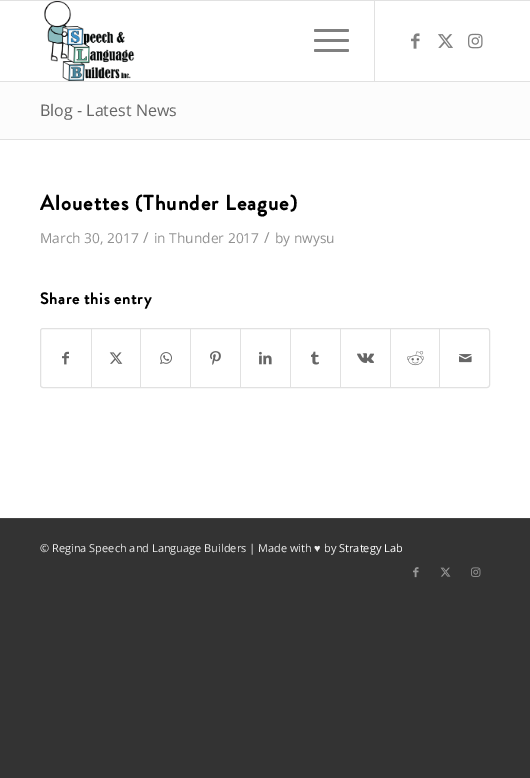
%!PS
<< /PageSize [530 778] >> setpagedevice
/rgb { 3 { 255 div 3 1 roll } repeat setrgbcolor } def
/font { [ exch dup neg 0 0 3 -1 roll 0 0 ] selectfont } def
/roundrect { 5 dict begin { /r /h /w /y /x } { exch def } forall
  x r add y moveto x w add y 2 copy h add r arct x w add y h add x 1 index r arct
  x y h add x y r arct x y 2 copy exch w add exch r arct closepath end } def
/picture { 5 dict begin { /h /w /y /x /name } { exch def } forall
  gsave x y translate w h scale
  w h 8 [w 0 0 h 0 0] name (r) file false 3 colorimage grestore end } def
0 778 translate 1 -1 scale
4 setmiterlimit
51 51 51 rgb
0 0 530 778 rectfill
[
  [0 1 530 517 255 255 255]
  [0 0 530 1 225 225 225]
  [0 81 530 1 225 225 225]
] { aload pop rgb rectfill } forall
(img/1.rgb) 44 1 91 80 picture
374 1 1 80 rectfill
128 128 128 rgb
314 39 35 3 1.5 roundrect fill
314 29 35 3 1.5 roundrect fill
314 49 35 3 1.5 roundrect fill
(img/2.rgb) 411 33 9 16 picture
(img/3.rgb) 438 34 15 14 picture
(img/4.rgb) 468 33 15 16 picture
252 252 252 rgb
0 82 530 57 rectfill
225 225 225 rgb
0 139 530 1 rectfill
40.5 328.5 449 59 2.5 roundrect stroke
(img/5.rgb) 62 351 7 14 picture
91 329 1 58 rectfill
(img/6.rgb) 109 352 14 12 picture
140 329 1 58 rectfill
(img/7.rgb) 160 352 12 13 picture
190 329 1 58 rectfill
(img/8.rgb) 210 351 11 14 picture
240 329 1 58 rectfill
(img/9.rgb) 259 351 13 14 picture
290 329 1 58 rectfill
(img/10.rgb) 311 351 8 14 picture
340 329 1 58 rectfill
(img/11.rgb) 357 353 17 10 picture
390 329 1 58 rectfill
(img/12.rgb) 407 351 17 15 picture
439 329 1 58 rectfill
(img/13.rgb) 459 354 13 9 picture
68 68 68 rgb
0 518 530 1 rectfill
(img/14.rgb) 413 567 6 11 picture
(img/15.rgb) 440 567 11 10 picture
(img/16.rgb) 471 567 10 10 picture
/OpenSans-Regular 16 font
102 102 102 rgb
40 116 moveto (Blog - Latest News) show
/BrandonGrotesque-Bold 21 font
0 0 0 rgb
40 210 moveto 1.05 0 (Alouettes \(Thunder League\)) ashow
/OpenSans-Regular 13.75 font
145 145 145 rgb
40 243 moveto (March 30, 2017) show
/OpenSans-Regular 15 font
143 243 moveto (/) show
/OpenSans-Regular 13.75 font
154 243 moveto (in Thunder 2017) show
/OpenSans-Regular 15 font
264 243 moveto (/) show
/OpenSans-Regular 13.75 font
275 243 moveto (by nwysu) show
/BrandonGrotesque-Bold 16 font
0 0 0 rgb
40 304 moveto 0.75 0 (Share this entry) ashow
/OpenSans-Regular 11 font
238 238 238 rgb
40 552 moveto (© Regina Speech and Language Builders | Made with) show
/LiberationSans-Regular 11 font
314 552 moveto (♥) show
/OpenSans-Regular 11 font
324 552 moveto (by) show
255 255 255 rgb
339 552 moveto (Strategy Lab) show
showpage
